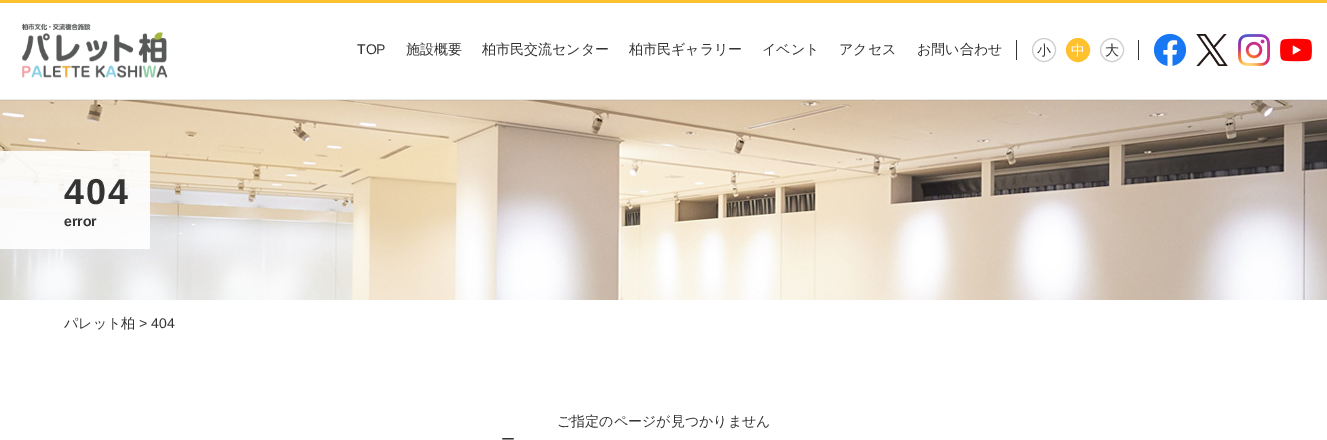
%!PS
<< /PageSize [1327 440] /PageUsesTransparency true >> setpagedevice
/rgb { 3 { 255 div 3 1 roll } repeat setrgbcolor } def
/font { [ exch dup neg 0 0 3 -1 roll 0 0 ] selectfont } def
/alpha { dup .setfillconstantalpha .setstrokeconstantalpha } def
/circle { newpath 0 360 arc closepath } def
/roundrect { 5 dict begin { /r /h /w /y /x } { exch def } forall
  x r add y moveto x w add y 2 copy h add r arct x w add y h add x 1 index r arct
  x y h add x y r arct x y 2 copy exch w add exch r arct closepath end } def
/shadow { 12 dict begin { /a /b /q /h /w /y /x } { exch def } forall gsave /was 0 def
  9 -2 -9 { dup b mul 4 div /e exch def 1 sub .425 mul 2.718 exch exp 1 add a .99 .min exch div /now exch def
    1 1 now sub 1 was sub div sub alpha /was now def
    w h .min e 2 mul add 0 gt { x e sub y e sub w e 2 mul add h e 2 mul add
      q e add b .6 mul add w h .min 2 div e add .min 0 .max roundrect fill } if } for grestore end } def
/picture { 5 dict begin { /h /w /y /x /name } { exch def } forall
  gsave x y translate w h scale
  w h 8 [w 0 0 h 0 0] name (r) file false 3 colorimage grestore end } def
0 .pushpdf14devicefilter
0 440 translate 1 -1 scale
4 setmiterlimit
255 255 255 rgb
0 0 1327 440 rectfill
(img/6.rgb) 0 100 1327 200 picture
gsave
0 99 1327 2 rectclip
0 0 0 rgb
0 0 1327 99 0 1.5 0.2 shadow
grestore
255 193 46 rgb
0 0 1327 3 rectfill
(img/1.rgb) 22 23 146 55 picture
51 51 51 rgb
1016 40 1 20 rectfill
204 204 204 rgb
1044 50 11.5 circle stroke
255 193 46 rgb
1078 50 11.5 circle gsave fill grestore
stroke
204 204 204 rgb
1112 50 11.5 circle stroke
51 51 51 rgb
1138 40 1 20 rectfill
(img/2.rgb) 1154 34 32 32 picture
(img/3.rgb) 1196 34 32 32 picture
(img/4.rgb) 1238 34 32 32 picture
(img/5.rgb) 1280 38 32 24 picture
0.9 alpha
255 255 255 rgb
64 151 86 98 rectfill
0 151 64 98 rectfill
/LiberationSans-Regular 14 font
1 alpha
51 51 51 rgb
357 54 moveto (TOP) show
/WenQuanYiZenHei-Medium 14 font
[
  [(施設概要) 406 54]
  [(柏市民交流センター) 482 54]
  [(柏市民ギャラリー) 629 54]
  [(イベント) 762 54]
  [(アクセス) 839 54]
  [(お問い合わせ) 917 54]
  [(小) 1037 55]
] { aload pop moveto show } forall
255 255 255 rgb
1071 55 moveto (中) show
51 51 51 rgb
1105 55 moveto (大) show
/LiberationSans-Bold 36 font
64 204 moveto 2 0 (404) ashow
/LiberationSans-Bold 14 font
64 226 moveto (error) show
/WenQuanYiZenHei-Medium 14 font
64 328 moveto (パレット柏) show
/LiberationSans-Regular 14 font
139 328 moveto (> 404) show
/WenQuanYiZenHei-Medium 14 font
557 426 moveto (ご指定のページが見つかりません) show
501 444 moveto (ー) show
.poppdf14devicefilter showpage
